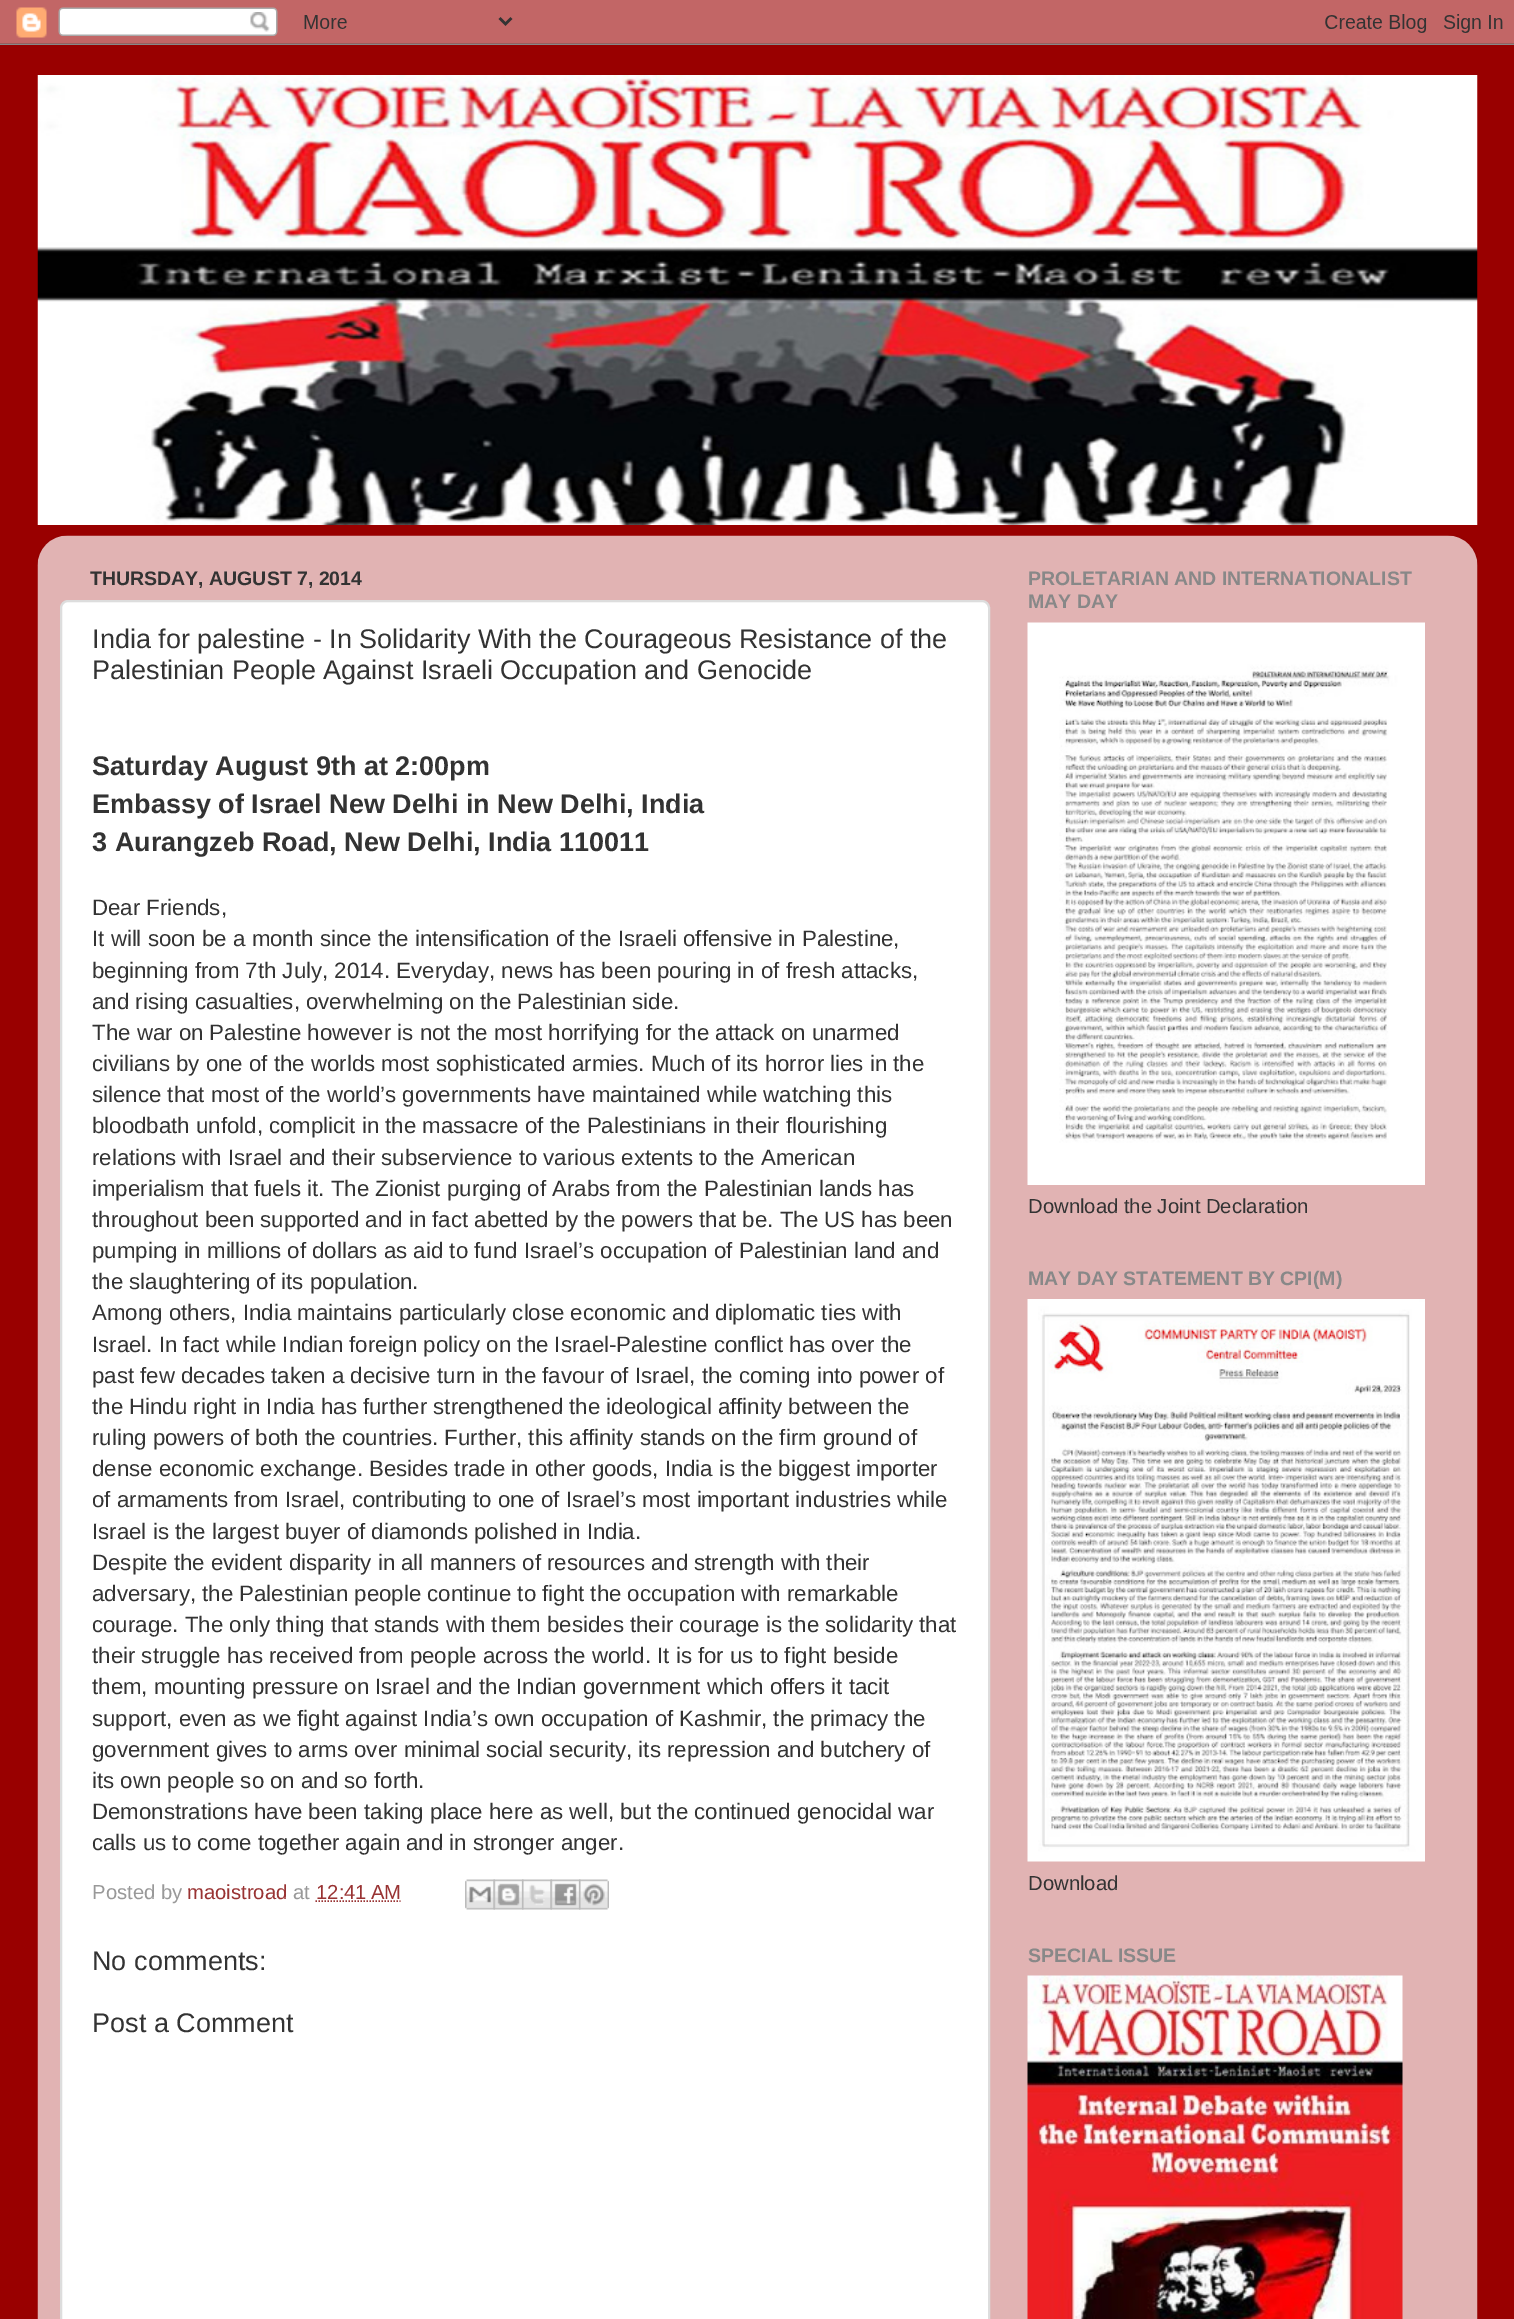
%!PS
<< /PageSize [1514 2319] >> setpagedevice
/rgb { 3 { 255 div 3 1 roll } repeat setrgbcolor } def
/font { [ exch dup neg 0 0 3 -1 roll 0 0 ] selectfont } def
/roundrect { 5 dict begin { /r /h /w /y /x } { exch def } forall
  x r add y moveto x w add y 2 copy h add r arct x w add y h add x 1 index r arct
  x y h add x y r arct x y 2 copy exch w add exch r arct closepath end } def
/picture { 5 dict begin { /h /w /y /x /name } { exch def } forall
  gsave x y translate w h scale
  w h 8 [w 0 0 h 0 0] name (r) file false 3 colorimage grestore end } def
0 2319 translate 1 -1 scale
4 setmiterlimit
153 0 0 rgb
0 0 1514 2319 rectfill
(img/1.rgb) 0 0 1514 45 picture
(img/2.rgb) 37 75 1441 450 picture
(img/3.rgb) 37 535 1441 1784 picture
255 255 255 rgb
61 601 928 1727 7 roundrect gsave fill grestore
221 221 221 rgb
2 setlinewidth
stroke
153 51 51 rgb
1.5 setlinewidth
[1.5 1.5] 0 setdash
315.5 1901 moveto 400.5 1901 lineto stroke
(img/4.rgb) 465 1879 30 31 picture
(img/5.rgb) 493 1879 31 31 picture
(img/6.rgb) 522 1879 30 31 picture
(img/7.rgb) 550 1879 31 31 picture
(img/8.rgb) 579 1879 30 31 picture
(img/9.rgb) 1027 622 398 563 picture
(img/10.rgb) 1027 1299 398 563 picture
(img/11.rgb) 1027 1975 376 344 picture
/LiberationSans-Bold 19.5 font
51 51 51 rgb
90 585 moveto (THURSDAY, AUGUST 7, 2014) show
/LiberationSans-Regular 27 font
92 648 moveto (India for palestine - In Solidarity With the Courageous Resistance of the) show
92 679 moveto (Palestinian People Against Israeli Occupation and Genocide) show
/LiberationSans-Bold 27 font
[
  [(Saturday August 9th at 2:00pm) 92 775]
  [(Embassy of Israel New Delhi in New Delhi, India) 92 813]
  [(3 Aurangzeb Road, New Delhi, India 110011) 92 851]
] { aload pop moveto show } forall
/LiberationSans-Regular 22.25 font
[
  [(Dear Friends,) 92 915]
  [(It will soon be a month since the intensification of the Israeli offensive in Palestine,) 92 946]
  [(beginning from 7th July, 2014. Everyday, news has been pouring in of fresh attacks,) 92 978]
  [(and rising casualties, overwhelming on the Palestinian side.) 92 1009]
  [(The war on Palestine however is not the most horrifying for the attack on unarmed) 92 1040]
  [(civilians by one of the worlds most sophisticated armies. Much of its horror lies in the) 92 1071]
  [(silence that most of the world’s governments have maintained while watching this) 92 1102]
  [(bloodbath unfold, complicit in the massacre of the Palestinians in their flourishing) 92 1133]
  [(relations with Israel and their subservience to various extents to the American) 92 1165]
  [(imperialism that fuels it. The Zionist purging of Arabs from the Palestinian lands has) 92 1196]
  [(throughout been supported and in fact abetted by the powers that be. The US has been) 92 1227]
  [(pumping in millions of dollars as aid to fund Israel’s occupation of Palestinian land and) 92 1258]
  [(the slaughtering of its population.) 92 1289]
  [(Among others, India maintains particularly close economic and diplomatic ties with) 92 1320]
  [(Israel. In fact while Indian foreign policy on the Israel-Palestine conflict has over the) 92 1352]
  [(past few decades taken a decisive turn in the favour of Israel, the coming into power of) 92 1383]
  [(the Hindu right in India has further strengthened the ideological affinity between the) 92 1414]
  [(ruling powers of both the countries. Further, this affinity stands on the firm ground of) 92 1445]
  [(dense economic exchange. Besides trade in other goods, India is the biggest importer) 92 1476]
  [(of armaments from Israel, contributing to one of Israel’s most important industries while) 92 1507]
  [(Israel is the largest buyer of diamonds polished in India.) 92 1539]
  [(Despite the evident disparity in all manners of resources and strength with their) 92 1570]
  [(adversary, the Palestinian people continue to fight the occupation with remarkable) 92 1601]
  [(courage. The only thing that stands with them besides their courage is the solidarity that) 92 1632]
  [(their struggle has received from people across the world. It is for us to fight beside) 92 1663]
  [(them, mounting pressure on Israel and the Indian government which offers it tacit) 92 1694]
  [(support, even as we fight against India’s own occupation of Kashmir, the primacy the) 92 1726]
  [(government gives to arms over minimal social security, its repression and butchery of) 92 1757]
  [(its own people so on and so forth.) 92 1788]
  [(Demonstrations have been taking place here as well, but the continued genocidal war) 92 1819]
  [(calls us to come together again and in stronger anger.) 92 1850]
] { aload pop moveto show } forall
/LiberationSans-Regular 20.25 font
153 153 153 rgb
92 1899 moveto (Posted by) show
153 51 51 rgb
187 1899 moveto (maoistroad) show
153 153 153 rgb
293 1899 moveto (at) show
153 51 51 rgb
316 1899 moveto (12:41 AM) show
/LiberationSans-Regular 27 font
51 51 51 rgb
92 1970 moveto (No comments:) show
92 2032 moveto (Post a Comment) show
/LiberationSans-Bold 19.5 font
136 136 136 rgb
1028 585 moveto (PROLETARIAN AND INTERNATIONALIST) show
1028 608 moveto (MAY DAY) show
/LiberationSans-Regular 20.25 font
51 51 51 rgb
1028 1213 moveto (Download the Joint Declaration) show
/LiberationSans-Bold 19.5 font
136 136 136 rgb
1028 1285 moveto (MAY DAY STATEMENT BY CPI\(M\)) show
/LiberationSans-Regular 20.25 font
51 51 51 rgb
1028 1890 moveto (Download) show
/LiberationSans-Bold 19.5 font
136 136 136 rgb
1028 1962 moveto (SPECIAL ISSUE) show
showpage
